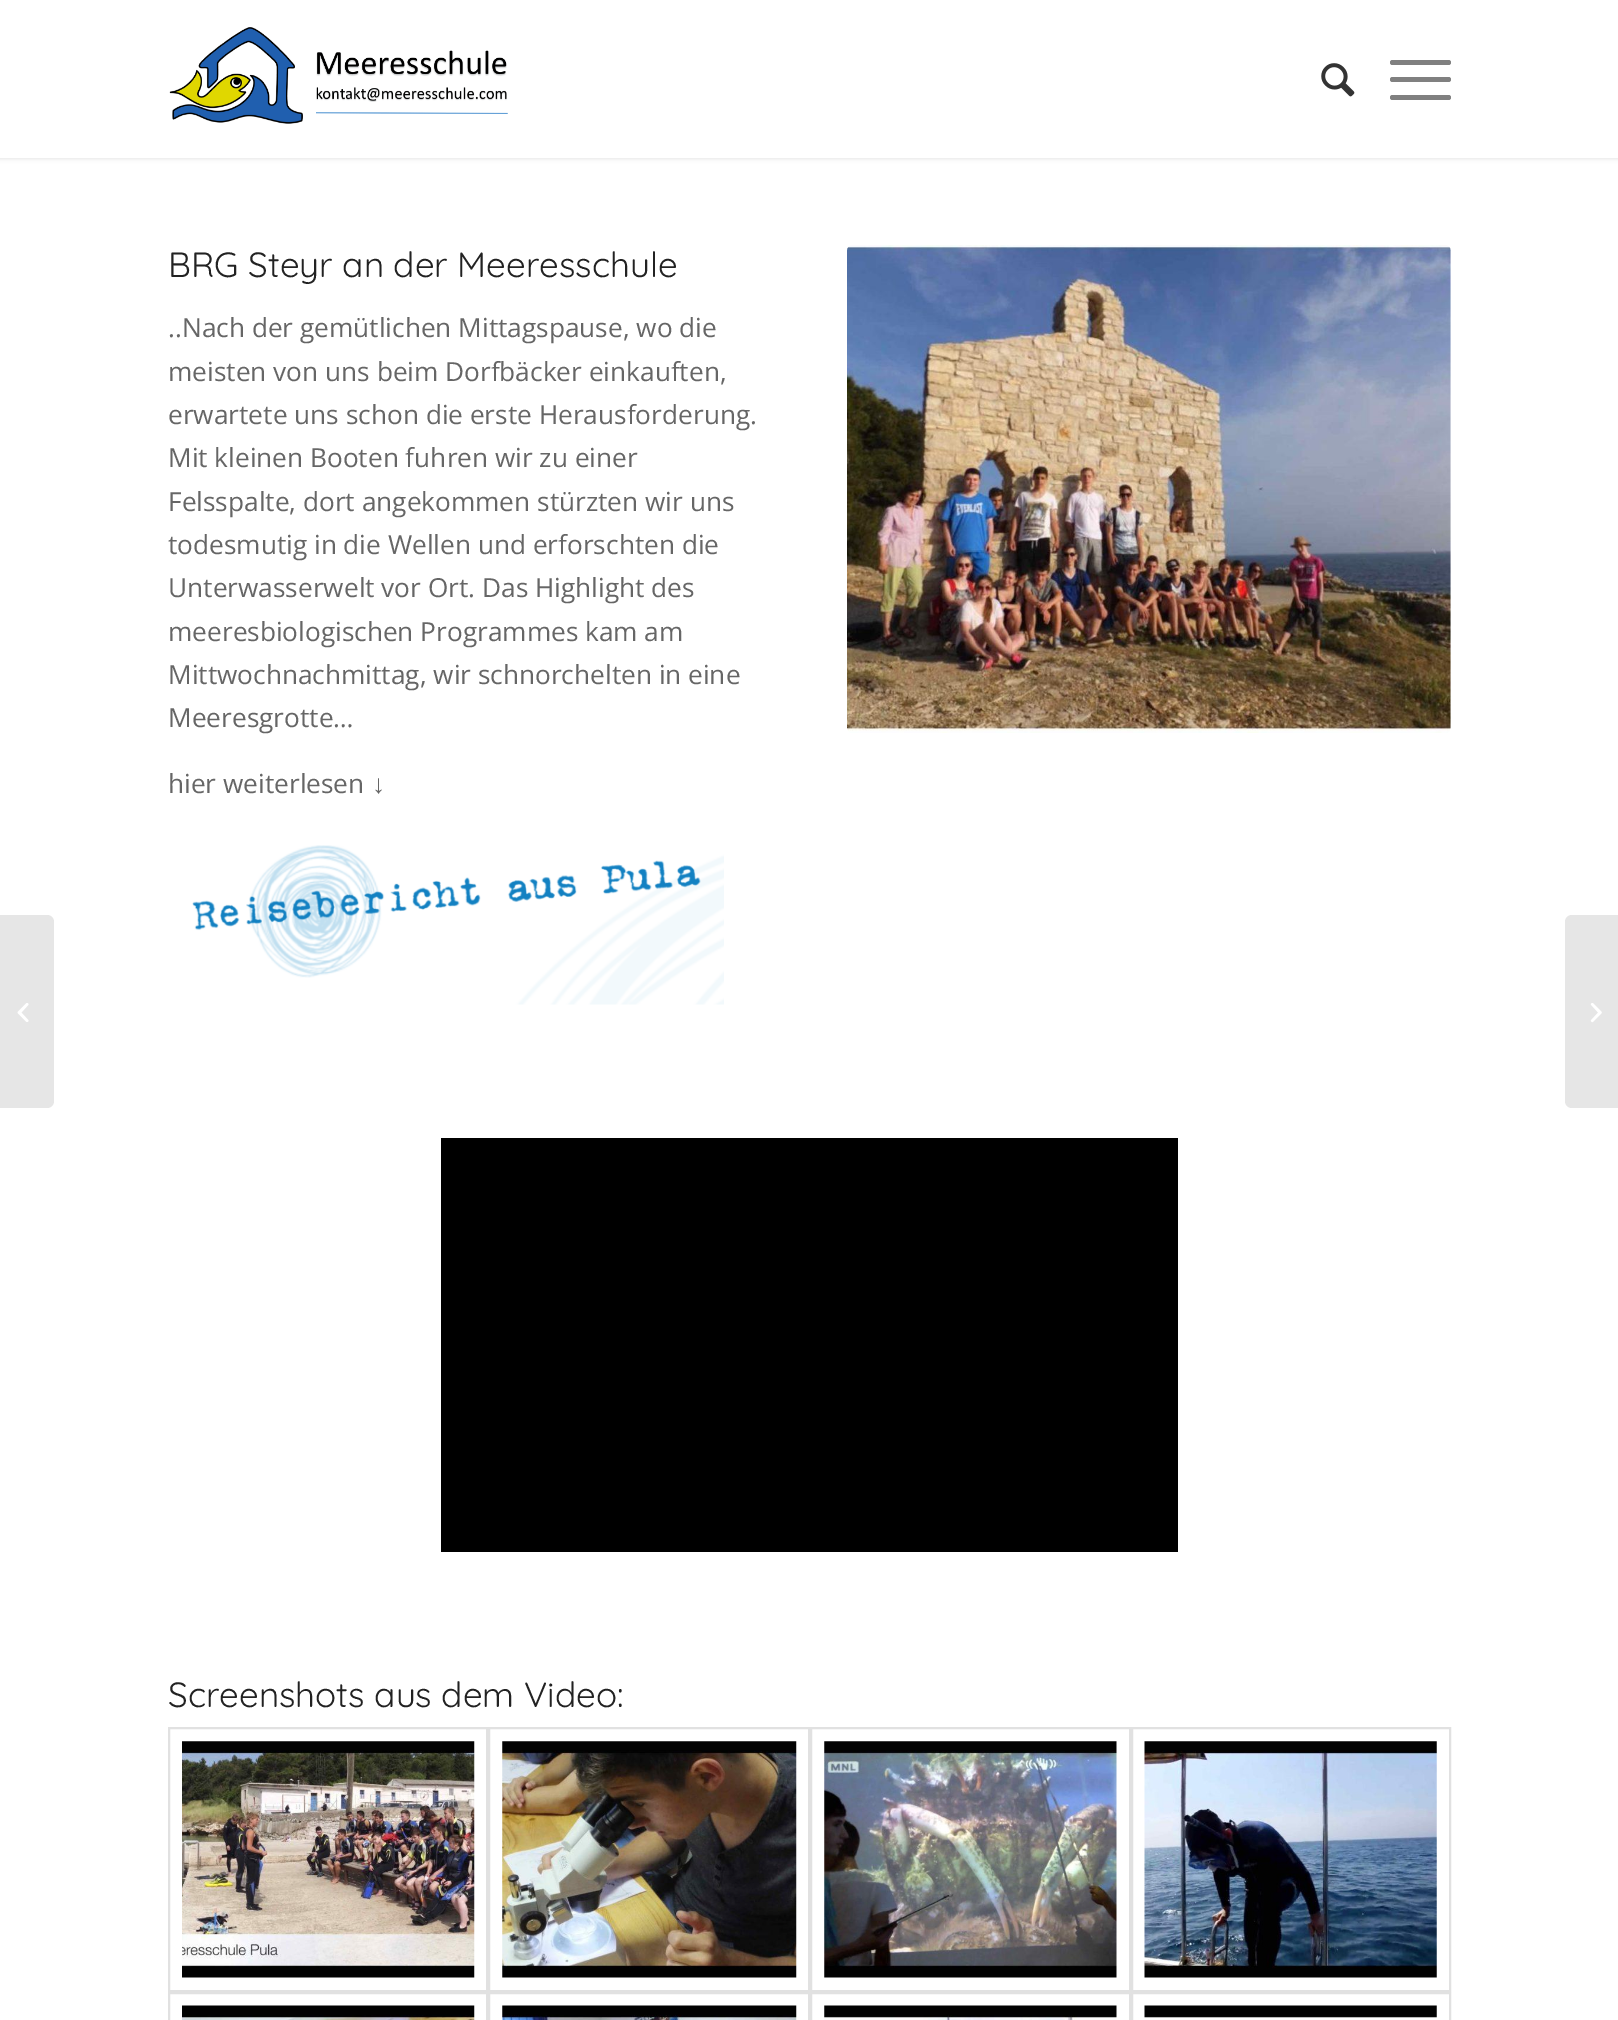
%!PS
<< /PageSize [1618 2020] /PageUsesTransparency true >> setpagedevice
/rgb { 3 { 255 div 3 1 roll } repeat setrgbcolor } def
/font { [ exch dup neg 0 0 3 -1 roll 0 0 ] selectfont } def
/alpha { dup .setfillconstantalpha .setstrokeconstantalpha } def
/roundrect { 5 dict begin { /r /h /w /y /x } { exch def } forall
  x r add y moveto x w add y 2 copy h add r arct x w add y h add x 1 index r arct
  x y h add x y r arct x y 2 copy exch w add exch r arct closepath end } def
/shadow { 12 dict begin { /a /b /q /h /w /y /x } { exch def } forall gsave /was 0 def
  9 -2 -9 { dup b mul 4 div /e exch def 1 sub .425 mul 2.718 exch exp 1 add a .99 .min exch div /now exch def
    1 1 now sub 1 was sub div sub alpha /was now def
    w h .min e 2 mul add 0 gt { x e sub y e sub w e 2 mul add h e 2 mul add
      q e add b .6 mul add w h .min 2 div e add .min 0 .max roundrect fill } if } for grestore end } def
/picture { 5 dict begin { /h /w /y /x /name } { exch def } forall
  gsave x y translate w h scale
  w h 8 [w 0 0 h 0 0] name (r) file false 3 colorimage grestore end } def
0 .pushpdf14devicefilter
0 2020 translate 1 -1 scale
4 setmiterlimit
255 255 255 rgb
0 0 1618 2020 rectfill
0 0 0 rgb
-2 -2 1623 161 0 2 0.1 shadow
255 255 255 rgb
0 0 1618 158 rectfill
(img/1.rgb) 169 27 339 97 picture
(img/2.rgb) 1321 63 34 34 picture
128 128 128 rgb
1390 77 61 5 2.5 roundrect fill
1390 60 61 5 2.5 roundrect fill
1390 95 61 5 2.5 roundrect fill
230 230 230 rgb
0 915 moveto 47 915 lineto 51 915 54 918 54 922 curveto 54 1101 lineto 54 1105 51 1108 47 1108 curveto 0 1108 lineto closepath fill
(img/3.rgb) 17 1003 12 19 picture
(img/4.rgb) 192 845 532 160 picture
(img/5.rgb) 847 245 604 488 picture
0 0 0 rgb
441 1138 737 414 rectfill
225 225 225 rgb
2 setlinewidth
169 1728 318 263 rectstroke
(img/6.rgb) 182 1741 293 237 picture
489 1728 320 263 rectstroke
(img/7.rgb) 502 1741 295 237 picture
811 1728 319 263 rectstroke
(img/8.rgb) 824 1741 293 237 picture
1132 1728 318 263 rectstroke
(img/9.rgb) 1144 1741 293 237 picture
169 1993 318 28 rectstroke
(img/10.rgb) 182 2005 293 15 picture
489 1993 320 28 rectstroke
(img/11.rgb) 502 2005 295 15 picture
811 1993 319 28 rectstroke
(img/12.rgb) 824 2005 293 15 picture
1132 1993 318 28 rectstroke
(img/13.rgb) 1144 2005 293 13 picture
230 230 230 rgb
1572 915 moveto 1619 915 lineto 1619 1108 lineto 1572 1108 lineto 1568 1108 1565 1105 1565 1101 curveto 1565 922 lineto 1565 918 1568 915 1572 915 curveto closepath fill
(img/14.rgb) 1590 1003 12 20 picture
/Quicksand-Light 35 font
34 34 34 rgb
168 277 moveto (BRG Steyr an der Meeresschule) show
/OpenSans-Regular 26.25 font
102 102 102 rgb
[
  [(..Nach der gemütlichen Mittagspause, wo die) 168 337]
  [(meisten von uns beim Dorfbäcker einkauften,) 168 381]
  [(erwartete uns schon die erste Herausforderung.) 168 424]
  [(Mit kleinen Booten fuhren wir zu einer) 168 467]
  [(Felsspalte, dort angekommen stürzten wir uns) 168 511]
  [(todesmutig in die Wellen und erforschten die) 168 554]
  [(Unterwasserwelt vor Ort. Das Highlight des) 168 597]
  [(meeresbiologischen Programmes kam am) 168 641]
  [(Mittwochnachmittag, wir schnorchelten in eine) 168 684]
  [(Meeresgrotte…) 168 727]
  [(hier weiterlesen) 168 793]
] { aload pop moveto show } forall
/LiberationSans-Regular 26.25 font
372 793 moveto (↓) show
/Quicksand-Light 35 font
34 34 34 rgb
168 1707 moveto (Screenshots aus dem Video:) show
.poppdf14devicefilter showpage
